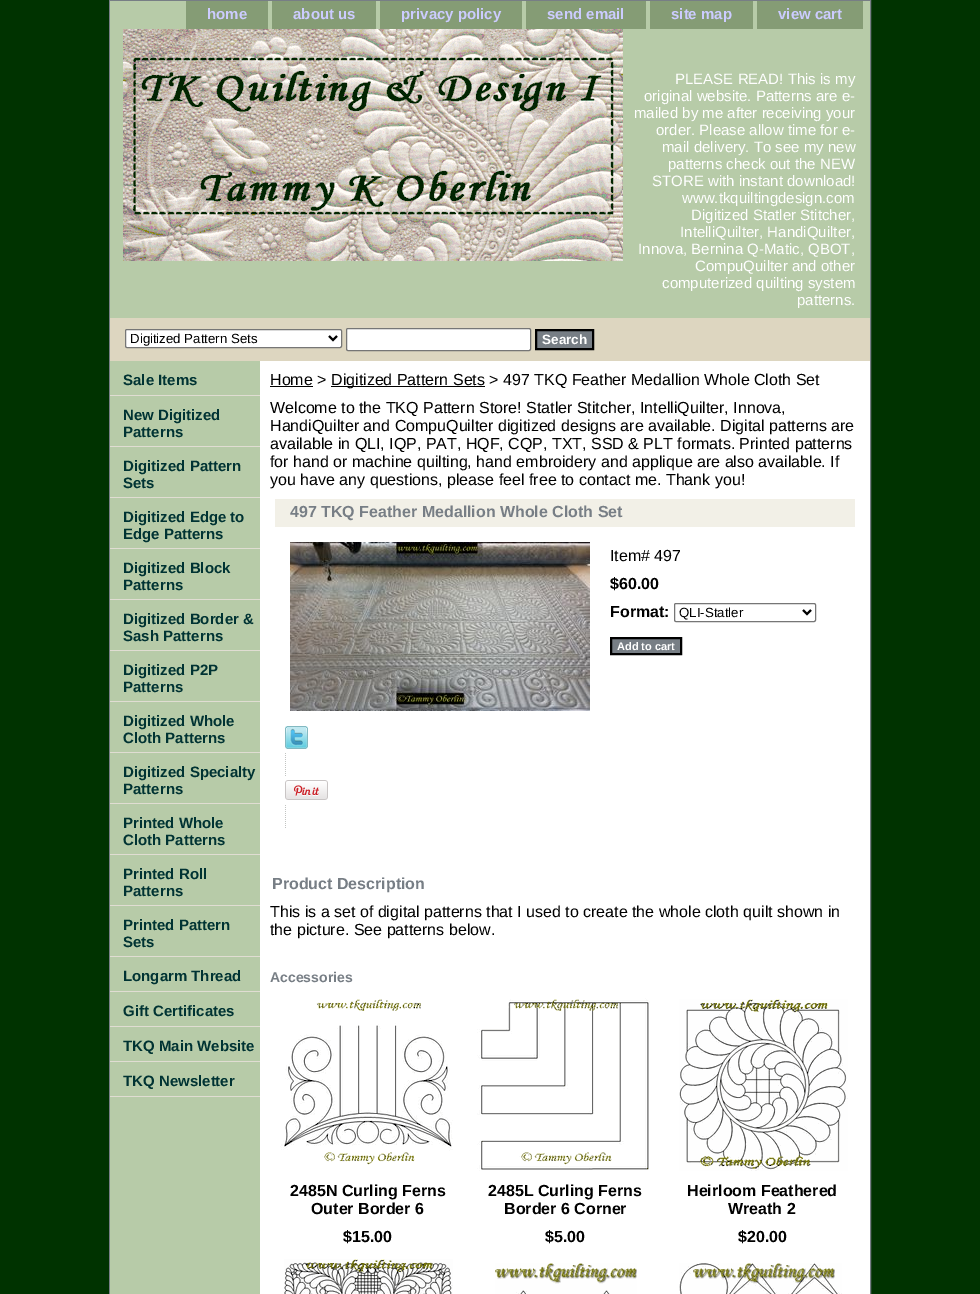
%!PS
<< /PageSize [980 1294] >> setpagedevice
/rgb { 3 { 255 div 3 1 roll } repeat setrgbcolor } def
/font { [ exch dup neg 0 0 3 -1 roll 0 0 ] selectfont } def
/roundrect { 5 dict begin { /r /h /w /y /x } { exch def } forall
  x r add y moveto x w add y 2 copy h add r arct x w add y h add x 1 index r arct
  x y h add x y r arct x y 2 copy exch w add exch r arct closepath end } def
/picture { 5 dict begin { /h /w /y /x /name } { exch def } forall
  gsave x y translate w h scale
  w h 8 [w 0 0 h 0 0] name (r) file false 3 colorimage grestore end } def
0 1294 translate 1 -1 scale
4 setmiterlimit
0 51 0 rgb
0 0 980 1294 rectfill
255 255 255 rgb
260 361 610 933 rectfill
119 126 133 rgb
109.5 0.5 761 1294 rectstroke
[
  [110 1 760 317 183 203 168]
  [186 1 82 28 133 156 117]
  [272 1 104 28 133 156 117]
  [380 1 142 28 133 156 117]
  [526 1 120 28 133 156 117]
  [650 1 103 28 133 156 117]
  [757 1 106 28 133 156 117]
] { aload pop rgb rectfill } forall
(img/1.rgb) 123 29 500 232 picture
221 214 192 rgb
110 318 760 43 rectfill
255 255 255 rgb
125.5 329.5 216 18 1.5 roundrect gsave fill grestore
118 118 118 rgb
stroke
0 0 0 rgb
2 setlinewidth
329 336 moveto 333 340 lineto 337 336 lineto stroke
255 255 255 rgb
346.5 328.5 184 22 1.5 roundrect gsave fill grestore
118 118 118 rgb
1 setlinewidth
stroke
119 126 133 rgb
536 330 moveto 593 330 lineto 593 349 lineto 536 349 lineto closepath gsave fill grestore
0 0 0 rgb
2 setlinewidth
stroke
[
  [110 361 150 933 183 203 168]
  [110 395 150 1 224 221 210]
  [110 446 150 1 224 221 210]
  [110 497 150 1 224 221 210]
  [110 548 150 1 224 221 210]
  [110 599 150 1 224 221 210]
  [110 650 150 1 224 221 210]
  [110 701 150 1 224 221 210]
  [110 752 150 1 224 221 210]
  [110 803 150 1 224 221 210]
  [110 854 150 1 224 221 210]
  [110 905 150 1 224 221 210]
  [110 956 150 1 224 221 210]
  [110 991 150 1 224 221 210]
  [110 1026 150 1 224 221 210]
  [110 1061 150 1 224 221 210]
  [110 1096 150 1 224 221 210]
  [270 386 43 1 0 0 0]
  [331 386 154 1 0 0 0]
  [275 499 580 28 242 240 231]
] { aload pop rgb rectfill } forall
(img/2.rgb) 290 542 300 169 picture
118 118 118 rgb
1 setlinewidth
674.5 603.5 141 18 1.5 roundrect stroke
0 0 0 rgb
2 setlinewidth
803 610 moveto 807 614 lineto 811 610 lineto stroke
119 126 133 rgb
611 638 moveto 681 638 lineto 681 654 lineto 611 654 lineto closepath gsave fill grestore
0 0 0 rgb
stroke
(img/3.rgb) 285 726 23 23 picture
(img/4.rgb) 285 753 1 23 picture
(img/5.rgb) 285 780 43 20 picture
(img/4.rgb) 285 805 1 23 picture
(img/6.rgb) 280 999 173 166 picture
(img/7.rgb) 477 998 173 173 picture
(img/8.rgb) 679 999 169 172 picture
(img/9.rgb) 284 1259 169 35 picture
(img/10.rgb) 495 1263 142 31 picture
(img/11.rgb) 679 1263 163 31 picture
/LiberationSans-Bold 15 font
204 204 255 rgb
[
  [(home) 207 19]
  [(about us) 293 19]
  [(privacy policy) 401 19]
  [(send email) 547 19]
  [(site map) 671 19]
  [(view cart) 778 19]
] { aload pop moveto show } forall
/LiberationSans-Regular 15 font
255 255 255 rgb
[
  [(PLEASE READ! This is my) 675 84]
  [(original website. Patterns are e-) 644 101]
  [(mailed by me after receiving your) 634 118]
  [(order. Please allow time for e-) 656 135]
  [(mail delivery. To see my new) 662 152]
  [(patterns check out the NEW) 668 169]
  [(STORE with instant download!) 652 186]
  [(www.tkquiltingdesign.com) 682 203]
  [(Digitized Statler Stitcher,) 691 220]
  [(IntelliQuilter, HandiQuilter,) 680 237]
  [(Innova, Bernina Q-Matic, QBOT,) 638 254]
  [(CompuQuilter and other) 695 271]
  [(computerized quilting system) 662 288]
  [(patterns.) 797 305]
] { aload pop moveto show } forall
/LiberationSans-Regular 13.25 font
0 0 0 rgb
130 343 moveto (Digitized Pattern Sets) show
/LiberationSans-Bold 13.5 font
255 255 255 rgb
542 344 moveto (Search) show
/LiberationSans-Bold 15 font
0 51 51 rgb
[
  [(Sale Items) 123 385]
  [(New Digitized) 123 420]
  [(Patterns) 123 437]
  [(Digitized Pattern) 123 471]
  [(Sets) 123 488]
  [(Digitized Edge to) 123 522]
  [(Edge Patterns) 123 539]
  [(Digitized Block) 123 573]
  [(Patterns) 123 590]
  [(Digitized Border &) 123 624]
  [(Sash Patterns) 123 641]
  [(Digitized P2P) 123 675]
  [(Patterns) 123 692]
  [(Digitized Whole) 123 726]
  [(Cloth Patterns) 123 743]
  [(Digitized Specialty) 123 777]
  [(Patterns) 123 794]
  [(Printed Whole) 123 828]
  [(Cloth Patterns) 123 845]
  [(Printed Roll) 123 879]
  [(Patterns) 123 896]
  [(Printed Pattern) 123 930]
  [(Sets) 123 947]
  [(Longarm Thread) 123 981]
  [(Gift Certificates) 123 1016]
  [(TKQ Main Website) 123 1051]
  [(TKQ Newsletter) 123 1086]
] { aload pop moveto show } forall
/LiberationSans-Regular 16 font
0 0 0 rgb
[
  [(Home >) 270 385]
  [(Digitized Pattern Sets > 497 TKQ Feather Medallion Whole Cloth Set) 331 385]
  [(Welcome to the TKQ Pattern Store! Statler Stitcher, IntelliQuilter, Innova,) 270 413]
  [(HandiQuilter and CompuQuilter digitized designs are available. Digital patterns are) 270 431]
  [(available in QLI, IQP, PAT, HQF, CQP, TXT, SSD & PLT formats. Printed patterns) 270 449]
  [(for hand or machine quilting, hand embroidery and applique are also available. If) 270 467]
  [(you have any questions, please feel free to contact me. Thank you!) 270 485]
] { aload pop moveto show } forall
/LiberationSans-Bold 16 font
119 126 133 rgb
290 517 moveto (497 TKQ Feather Medallion Whole Cloth Set) show
/LiberationSans-Regular 16 font
0 0 0 rgb
610 561 moveto (Item# 497) show
/LiberationSans-Bold 16 font
610 589 moveto ($60.00) show
610 617 moveto (Format:) show
/LiberationSans-Regular 13.25 font
679 617 moveto (QLI-Statler) show
/LiberationSans-Bold 11 font
255 255 255 rgb
617 650 moveto (Add to cart) show
/LiberationSans-Bold 16 font
119 126 133 rgb
272 889 moveto (Product Description) show
/LiberationSans-Regular 16 font
0 0 0 rgb
270 917 moveto (This is a set of digital patterns that I used to create the whole cloth quilt shown in) show
270 935 moveto (the picture. See patterns below.) show
/LiberationSans-Bold 14 font
119 126 133 rgb
270 982 moveto (Accessories) show
/LiberationSans-Bold 16 font
0 0 0 rgb
[
  [(2485N Curling Ferns) 290 1196]
  [(Outer Border 6) 311 1214]
  [($15.00) 343 1242]
  [(2485L Curling Ferns) 488 1196]
  [(Border 6 Corner) 504 1214]
  [($5.00) 545 1242]
  [(Heirloom Feathered) 687 1196]
  [(Wreath 2) 728 1214]
  [($20.00) 738 1242]
] { aload pop moveto show } forall
showpage
